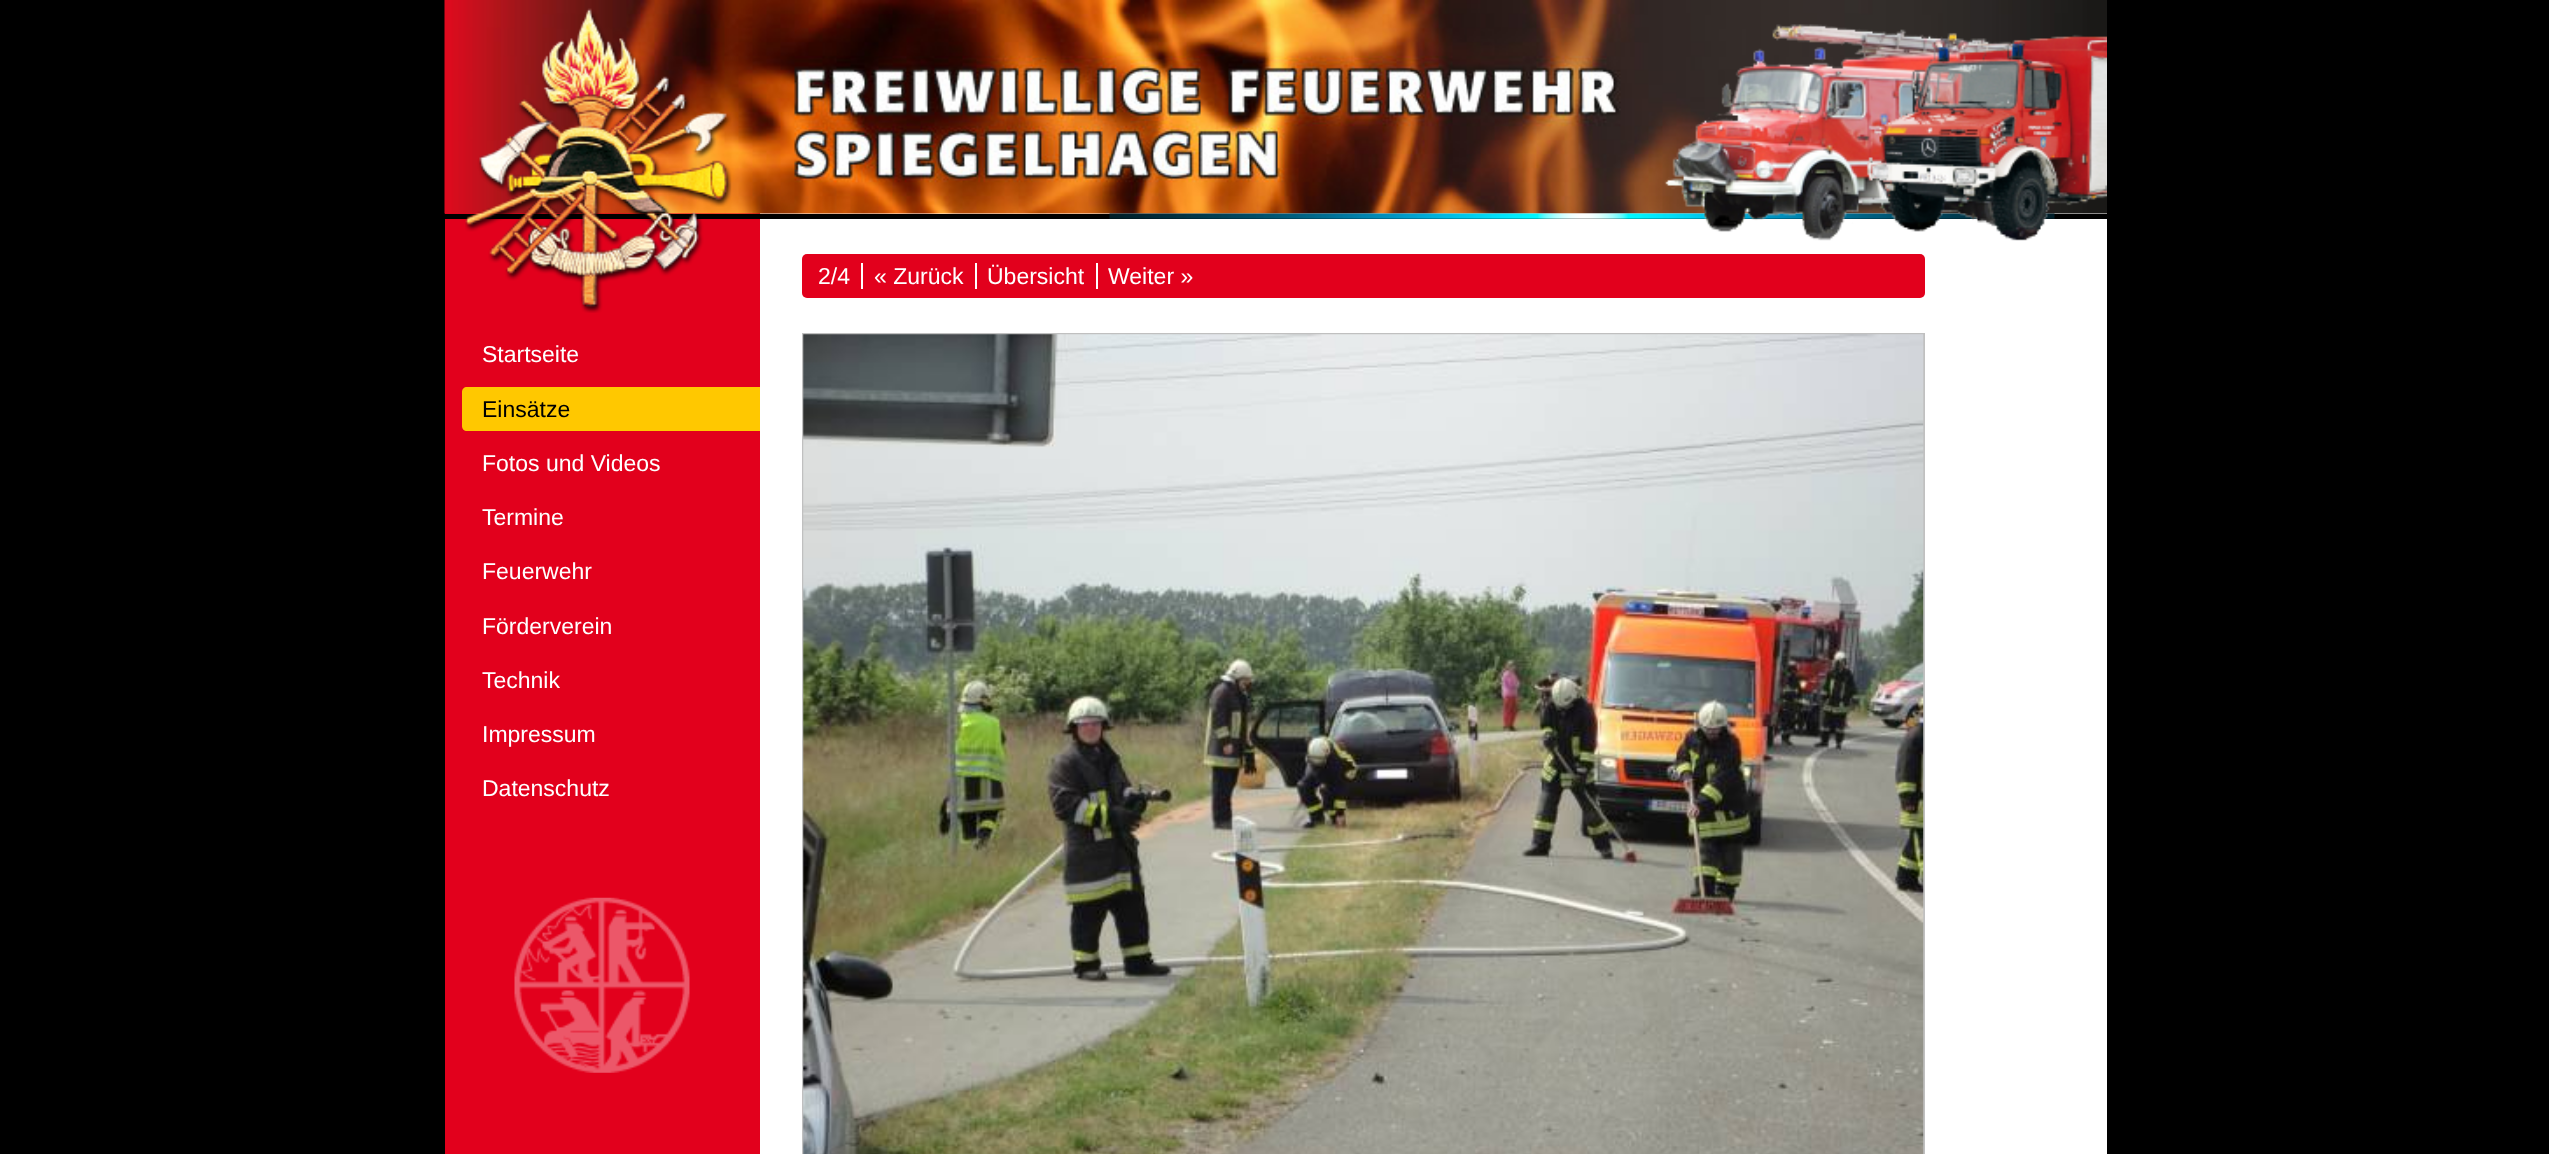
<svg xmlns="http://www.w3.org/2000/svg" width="2549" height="1154">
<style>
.a{font:23px Liberation Sans;fill:#fff}
.b{font:23px Liberation Sans;fill:#000}
</style>
<rect width="100%" height="100%" fill="#000"/>
<path fill="#fff" d="M760 213h1347v941H760z"/>
<path fill="#e2001c" d="M445 213h315v941H445z"/>
<image href="1.png" x="444" y="0" width="1663" height="214"/>
<path fill="#000" d="M445 214h1662v5H445z"/>
<image href="2.png" x="465" y="8" width="267" height="305"/>
<image href="4.png" x="1109" y="213" width="946" height="6"/>
<image href="3.png" x="1664" y="24" width="443" height="217"/>
<rect fill="#e2001c" x="802" y="254" width="1123" height="44" rx="5"/>
<path fill="#fff" d="M861 263h2v26H861z"/>
<path fill="#fff" d="M975 263h2v26H975z"/>
<path fill="#fff" d="M1096 263h2v26H1096z"/>
<path fill="none" stroke="#c0c0c0" stroke-width="2" d="M803 334h1121v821H803z"/>
<image href="5.png" x="803" y="334" width="1121" height="820"/>
<image href="6.png" x="514" y="897" width="176" height="176"/>
<path fill="#ffc800" d="M467 387h293v44h-293c-3 0-5-2-5-5v-34c0-3 2-5 5-5z"/>
<text class="a" x="818" y="284">2/4</text>
<text class="a" x="874" y="284">« Zurück</text>
<text class="a" x="987" y="284">Übersicht</text>
<text class="a" x="1108" y="284">Weiter »</text>
<text class="a" x="482" y="362">Startseite</text>
<text class="b" x="482" y="417">Einsätze</text>
<text class="a" x="482" y="471">Fotos und Videos</text>
<text class="a" x="482" y="525">Termine</text>
<text class="a" x="482" y="579">Feuerwehr</text>
<text class="a" x="482" y="634">Förderverein</text>
<text class="a" x="482" y="688">Technik</text>
<text class="a" x="482" y="742">Impressum</text>
<text class="a" x="482" y="796">Datenschutz</text>
</svg>
